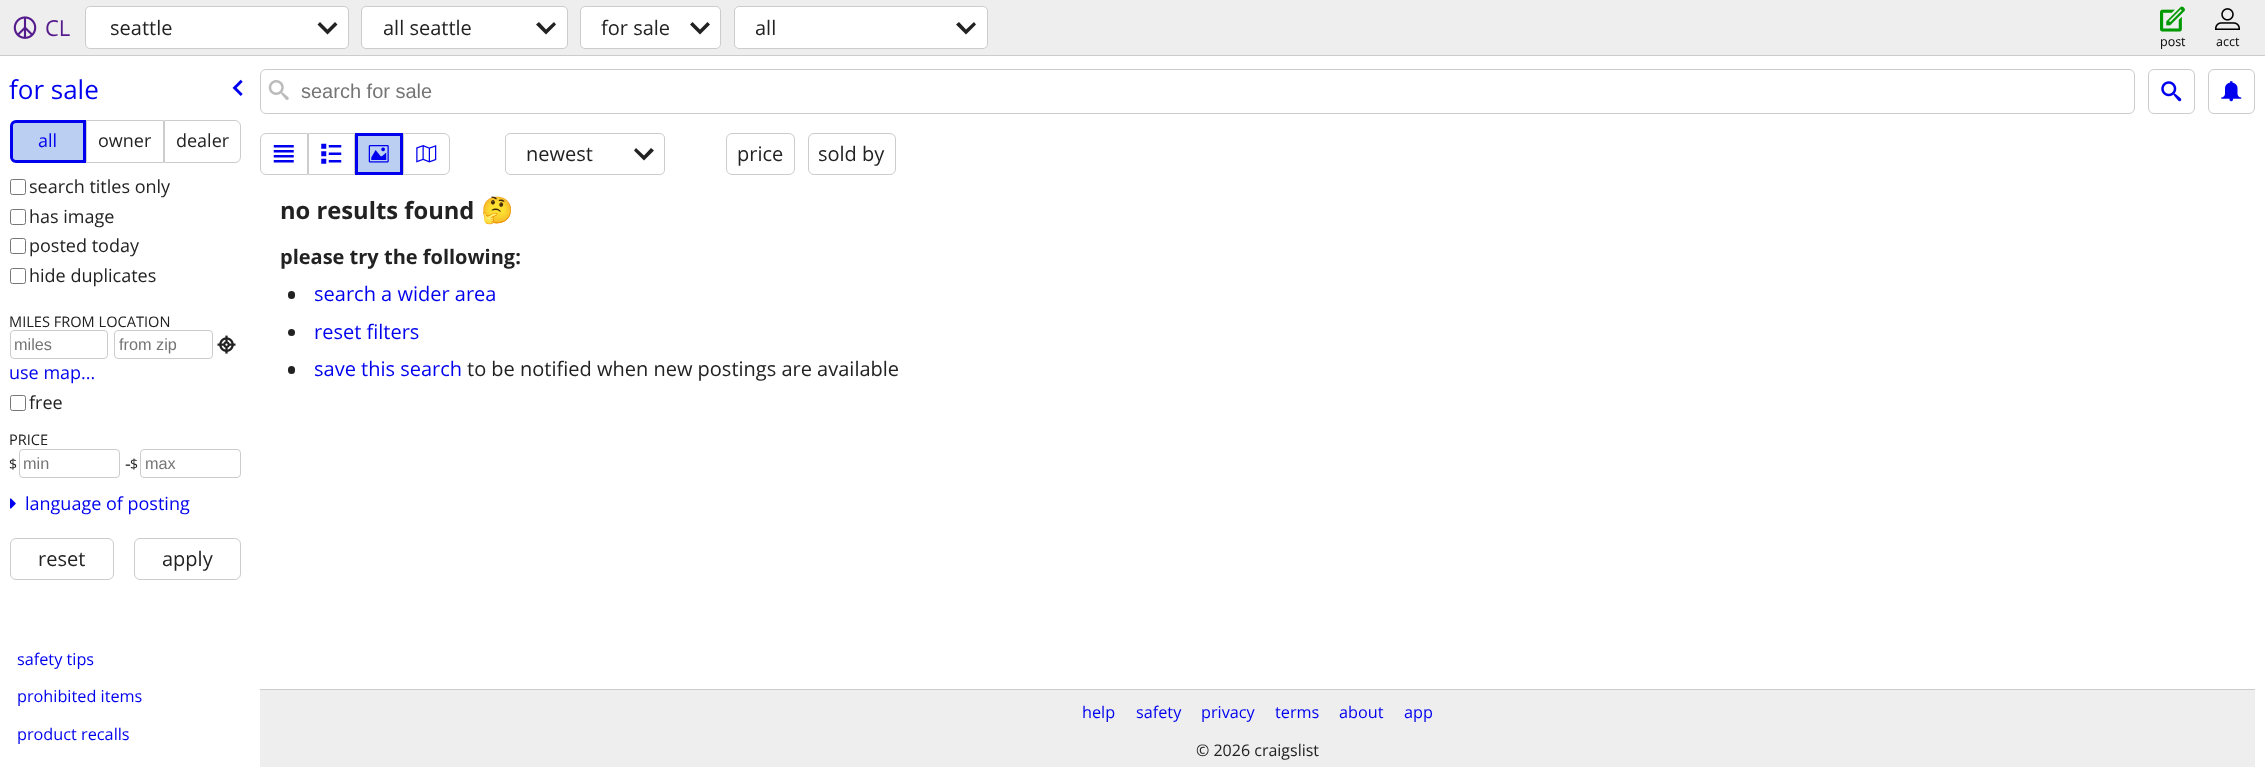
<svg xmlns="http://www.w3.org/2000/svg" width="2265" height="767">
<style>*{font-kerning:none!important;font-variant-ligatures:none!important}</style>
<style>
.a{font:22px Open Sans;fill:#551a8b}
.b{font:20px Open Sans;fill:#222}
.c{font:12.5px Open Sans;fill:#000}
.d{font:26px Open Sans;fill:#00e}
.e{font:18px Open Sans;fill:#00e}
.f{font:18px Open Sans;fill:#222}
.g{font:14.6px Open Sans;fill:#222}
.h{font:16.25px Liberation Sans;fill:#757575}
.i{font:14px Open Sans;fill:#222}
.j{font:16.25px Open Sans;fill:#00e}
.k{font:20px Liberation Sans;fill:#757575}
.l{font:bold 23.75px Open Sans;fill:#222}
.m{font:bold 26px Noto Color Emoji;fill:#222}
.n{font:bold 20px Open Sans;fill:#222}
.o{font:20px Open Sans;fill:#00e}
.p{font:16px Open Sans;fill:#222}
</style>
<rect width="100%" height="100%" fill="#fff"/>
<path fill="#eee" d="M0 0h2265v55H0z"/>
<path fill="#ccc" d="M0 55h2265v1H0z"/>
<image href="1.png" x="13" y="16" width="24" height="23"/>
<rect fill="#fff" stroke="#ccc" x="85.5" y="6.5" width="263" height="42" rx="4.5"/>
<path fill="#222" d="M337.5 24.5l-2.5-2.5l-7.5 7.5l-7.5-7.5l-2.5 2.5l10 10z"/>
<rect fill="#fff" stroke="#ccc" x="361.5" y="6.5" width="206" height="42" rx="4.5"/>
<path fill="#222" d="M556 24.5l-2-2.5l-8 7.5l-7-7.5l-3 2.5l10 10z"/>
<rect fill="#fff" stroke="#ccc" x="580.5" y="6.5" width="140" height="42" rx="4.5"/>
<path fill="#222" d="M710 24.5l-2.5-2.5l-7.5 7.5l-7.5-7.5l-2.5 2.5l10 10z"/>
<rect fill="#fff" stroke="#ccc" x="734.5" y="6.5" width="253" height="42" rx="4.5"/>
<path fill="#222" d="M976 24.5l-2-2.5l-8 7.5l-7-7.5l-3 2.5l10 10z"/>
<image href="2.png" x="2160" y="6" width="25" height="26"/>
<image href="3.png" x="2215" y="8" width="25" height="22"/>
<image href="4.png" x="232" y="79" width="11" height="17"/>
<path fill="#bacff2" stroke="#00e" stroke-width="3" d="M16 121.5h68.5v40h-68.5c-2.5 0-4.5-2-4.5-4.5v-31c0-2.5 2-4.5 4.5-4.5z"/>
<path fill="none" stroke="#ccc" d="M86.5 120.5h77v42H86.5z"/>
<path fill="none" stroke="#ccc" d="M164.5 120.5h70.5c3 0 5.5 2.5 5.5 5.5v31c0 3-2.5 5.5-5.5 5.5h-70.5z"/>
<rect fill="none" stroke="#767676" x="10.5" y="179.5" width="15" height="15" rx="2"/>
<rect fill="none" stroke="#767676" x="10.5" y="209.5" width="15" height="15" rx="2"/>
<rect fill="none" stroke="#767676" x="10.5" y="238.5" width="15" height="15" rx="2"/>
<rect fill="none" stroke="#767676" x="10.5" y="268.5" width="15" height="15" rx="2"/>
<rect fill="none" stroke="#ccc" x="10.5" y="330.5" width="97" height="28" rx="3.5"/>
<rect fill="none" stroke="#ccc" x="114.5" y="330.5" width="98" height="28" rx="3.5"/>
<image href="5.png" x="217" y="335" width="19" height="19"/>
<rect fill="none" stroke="#767676" x="10.5" y="395.5" width="15" height="15" rx="2"/>
<rect fill="none" stroke="#ccc" x="19.5" y="449.5" width="100" height="28" rx="3.5"/>
<rect fill="none" stroke="#ccc" x="140.5" y="449.5" width="100" height="28" rx="3.5"/>
<image href="6.png" x="10" y="498" width="6" height="11"/>
<rect fill="none" stroke="#ccc" x="10.5" y="538.5" width="103" height="41" rx="5.5"/>
<rect fill="none" stroke="#ccc" x="134.5" y="538.5" width="106" height="41" rx="5.5"/>
<rect fill="none" stroke="#ccc" x="260.5" y="69.5" width="1874" height="44" rx="5.5"/>
<image href="7.png" x="268" y="80" width="21" height="20"/>
<rect fill="none" stroke="#ccc" x="2148.5" y="69.5" width="46" height="44" rx="5.5"/>
<image href="8.png" x="2161" y="81" width="21" height="21"/>
<rect fill="none" stroke="#ccc" x="2208.5" y="69.5" width="46" height="44" rx="5.5"/>
<image href="9.png" x="2221" y="81" width="21" height="21"/>
<path fill="none" stroke="#ccc" d="M266 133.5h41.5v41h-41.5c-3 0-5.5-2.5-5.5-5.5v-30c0-3 2.5-5.5 5.5-5.5z"/>
<image href="10.png" x="273" y="145" width="21" height="18"/>
<path fill="none" stroke="#ccc" d="M308.5 133.5h46v41H308.5z"/>
<image href="11.png" x="321" y="143" width="21" height="21"/>
<path fill="#bacff2" stroke="#00e" stroke-width="3" d="M356.5 134.5h45v39H356.5z"/>
<image href="12.png" x="368" y="145" width="21" height="18"/>
<path fill="none" stroke="#ccc" d="M403.5 133.5h40.5c3 0 5.5 2.5 5.5 5.5v30c0 3-2.5 5.5-5.5 5.5h-40.5z"/>
<image href="13.png" x="416" y="145" width="21" height="18"/>
<rect fill="none" stroke="#ccc" x="505.5" y="133.5" width="159" height="41" rx="4.5"/>
<path fill="#222" d="M654 150.5l-3-2.5l-7 7.5l-8-7.5l-2 2.5l10 10z"/>
<rect fill="none" stroke="#ccc" x="726.5" y="133.5" width="68" height="41" rx="5.5"/>
<rect fill="none" stroke="#ccc" x="808.5" y="133.5" width="87" height="41" rx="5.5"/>
<rect fill="#222" x="288" y="291" width="7" height="8" rx="3.5"/>
<circle fill="#222" cx="291.5" cy="332.5" r="3.5"/>
<rect fill="#222" x="288" y="366" width="7" height="8" rx="3.5"/>
<path fill="#eee" d="M260 690h1995v77H260z"/>
<path fill="#ccc" d="M260 689h1995v1H260z"/>
<text class="a" x="45" y="36">CL</text>
<text class="b" x="110" y="35">seattle</text>
<text class="b" x="383" y="35">all seattle</text>
<text class="b" x="601" y="35">for sale</text>
<text class="b" x="755" y="35">all</text>
<text class="c" x="2160" y="46">post</text>
<text class="c" x="2216" y="46">acct</text>
<text class="d" x="9" y="99">for sale</text>
<text class="e" x="38" y="147">all</text>
<text class="f" x="98" y="147">owner</text>
<text class="f" x="176" y="147">dealer</text>
<text class="f" x="29" y="193">search titles only</text>
<text class="f" x="29" y="223">has image</text>
<text class="f" x="29" y="252">posted today</text>
<text class="f" x="29" y="282">hide duplicates</text>
<text class="g" x="9" y="327">MILES FROM LOCATION</text>
<text class="h" x="14" y="350">miles</text>
<text class="h" x="119" y="350">from zip</text>
<text class="e" x="9" y="379">use map...</text>
<text class="f" x="29" y="409">free</text>
<text class="g" x="9" y="445">PRICE</text>
<text class="i" x="9" y="469">$</text>
<text class="h" x="23" y="469">min</text>
<text class="f" x="125" y="470">-</text>
<text class="i" x="130" y="469">$</text>
<text class="h" x="145" y="469">max</text>
<text class="e" x="25" y="510">language of posting</text>
<text class="b" x="38" y="566">reset</text>
<text class="b" x="162" y="566">apply</text>
<text class="j" x="17" y="665">safety tips</text>
<text class="j" x="17" y="702">prohibited items</text>
<text class="j" x="17" y="740">product recalls</text>
<text class="k" x="301" y="98">search for sale</text>
<text class="b" x="526" y="161">newest</text>
<text class="b" x="737" y="161">price</text>
<text class="b" x="818" y="161">sold by</text>
<text class="l" x="280" y="219">no results found</text>
<text class="m" x="481" y="219">🤔</text>
<text class="n" x="280" y="264">please try the following:</text>
<text class="o" x="314" y="301">search a wider area</text>
<text class="o" x="314" y="339">reset filters</text>
<text class="o" x="314" y="376">save this search</text>
<text class="b" x="467" y="376">to be notified when new postings are available</text>
<text class="j" x="1082" y="718">help</text>
<text class="j" x="1136" y="718">safety</text>
<text class="j" x="1201" y="718">privacy</text>
<text class="j" x="1275" y="718">terms</text>
<text class="j" x="1339" y="718">about</text>
<text class="j" x="1404" y="718">app</text>
<text class="p" x="1196" y="756">© 2026 craigslist</text>
</svg>
